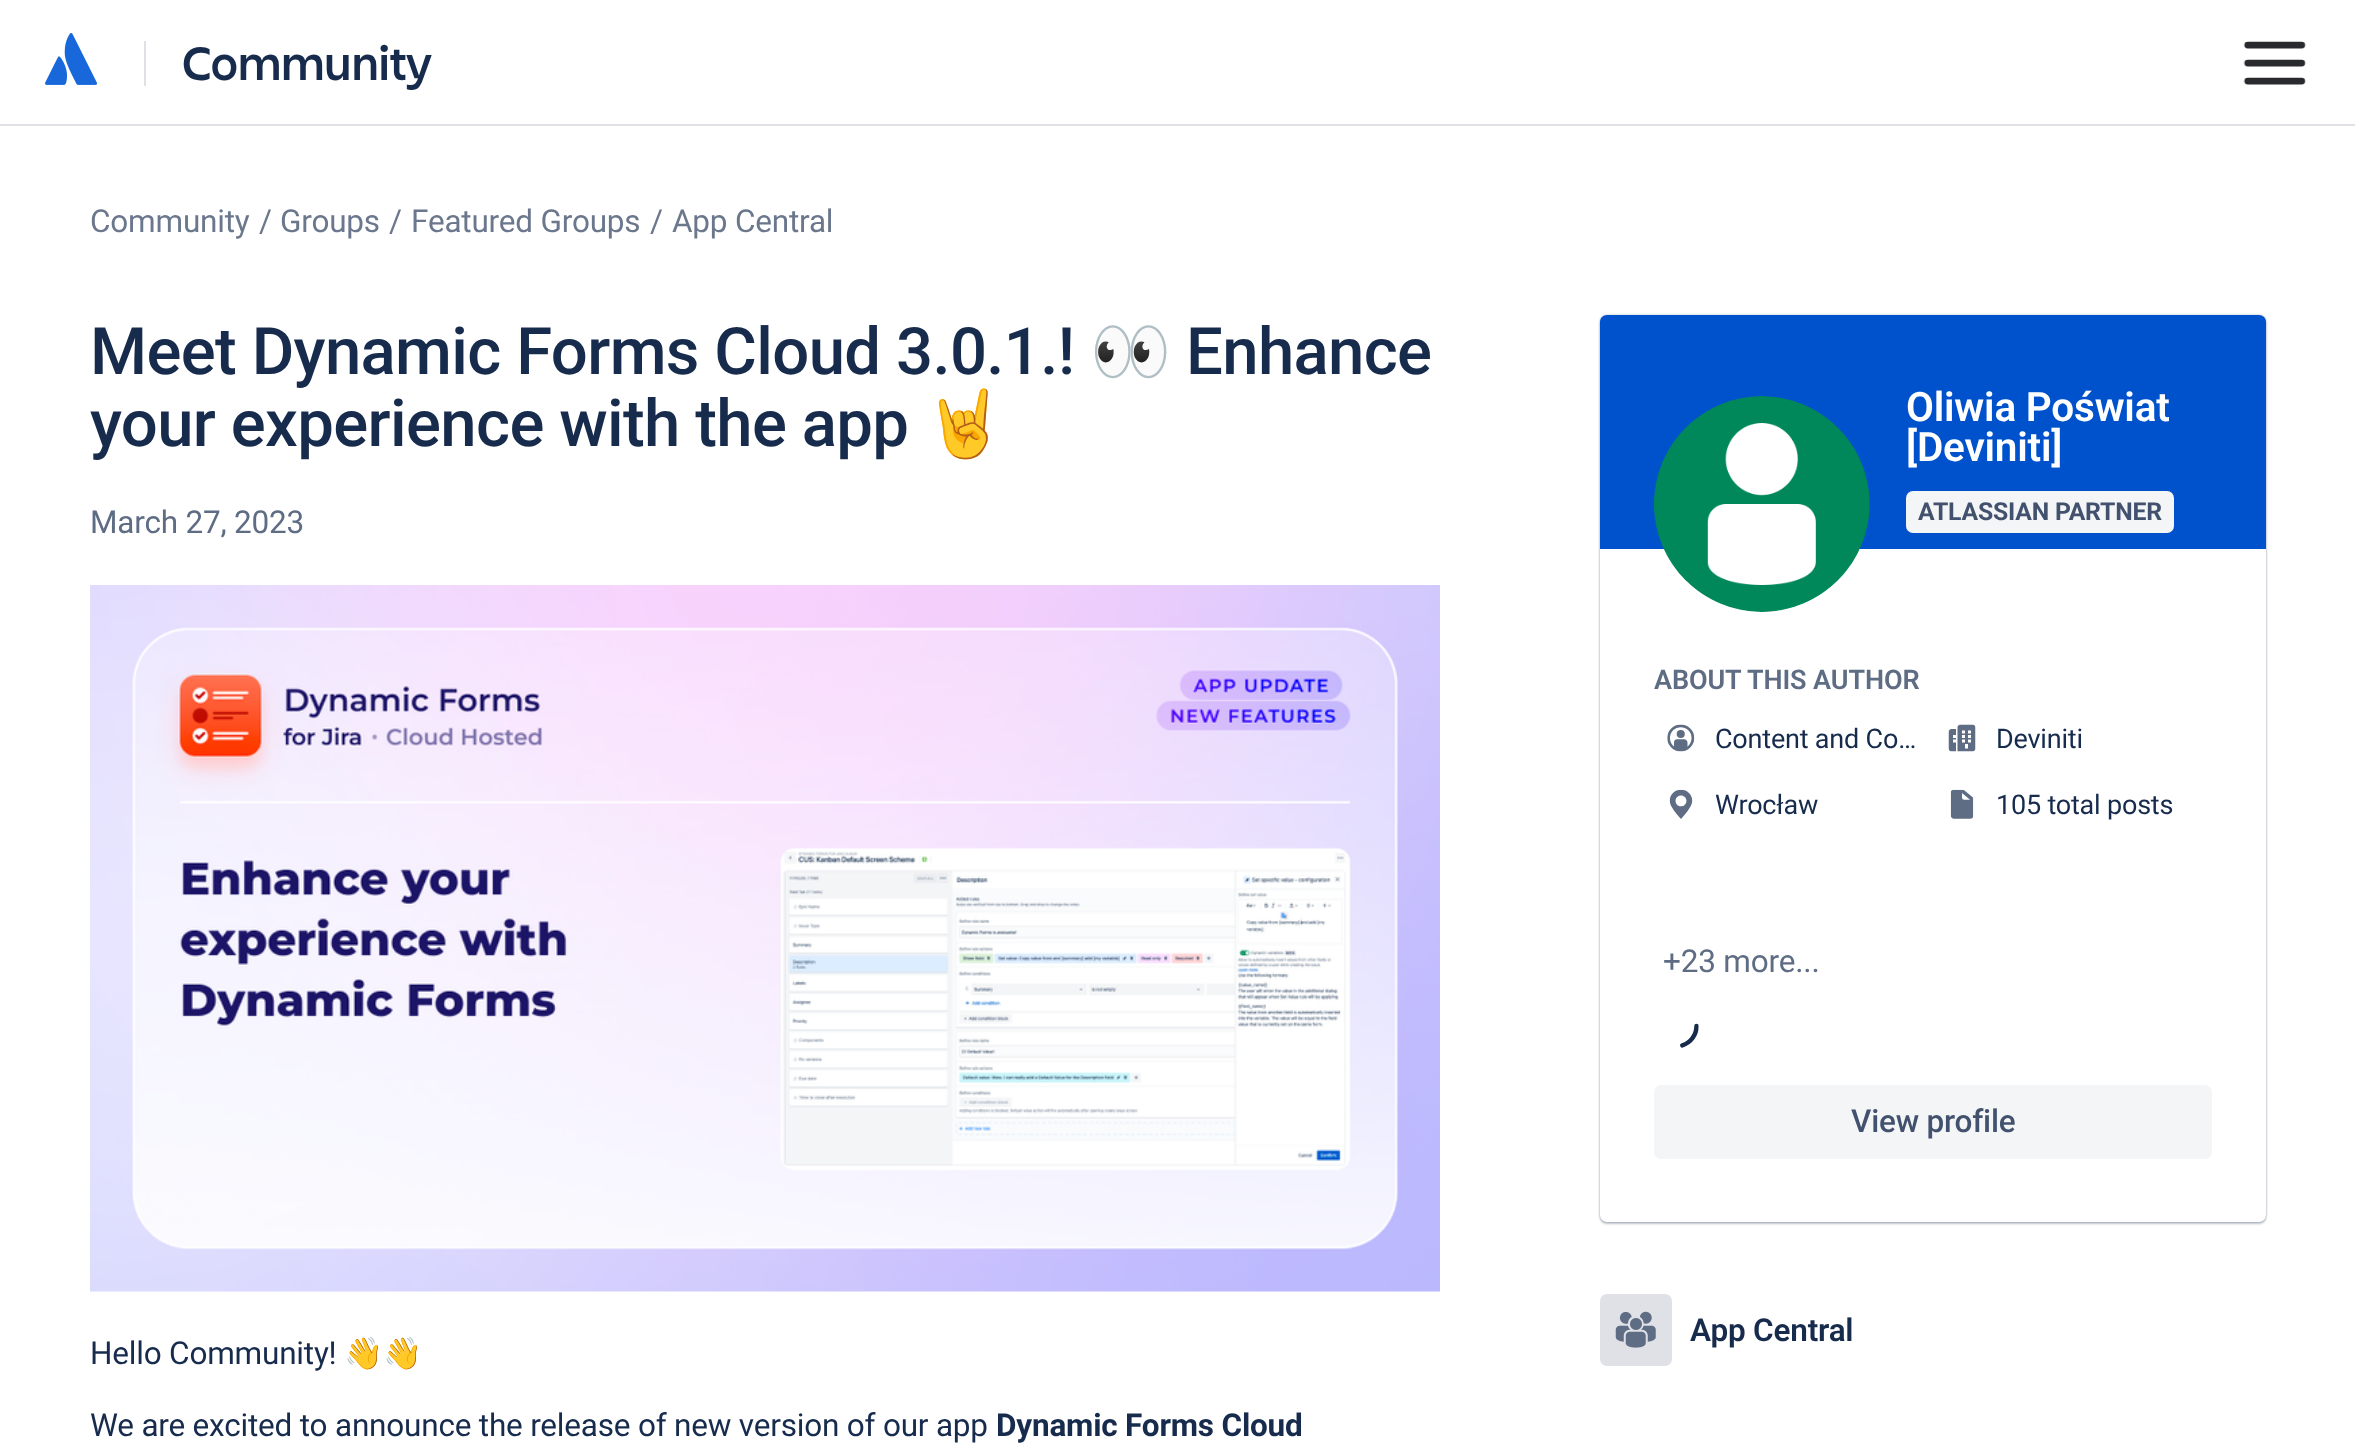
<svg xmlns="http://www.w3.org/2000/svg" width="2355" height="1450">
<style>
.a{font:600 49.5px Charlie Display;letter-spacing:-0.2px;fill:#172b4d}
.b{font:31.5px Roboto;letter-spacing:-0.2px;fill:#6b778c}
.c{font:500 65.25px Roboto;letter-spacing:-0.65px;fill:#172b4d}
.d{font:65.25px Noto Color Emoji;letter-spacing:-0.65px;fill:#172b4d}
.e{font:31.5px Roboto;letter-spacing:-0.2px;fill:#5e6c84}
.f{font:31.5px Roboto;letter-spacing:-0.2px;fill:#172b4d}
.g{font:31.5px Noto Color Emoji;letter-spacing:-0.2px;fill:#172b4d}
.h{font:bold 31.5px Roboto;letter-spacing:-0.2px;fill:#172b4d}
.i{font:600 40.5px Roboto;letter-spacing:-0.2px;fill:#fff}
.j{font:bold 24.75px Roboto;letter-spacing:-0.2px;fill:#42526e}
.k{font:600 27px Roboto;letter-spacing:-0.1px;fill:#5e6c84}
.l{font:27px Roboto;letter-spacing:-0.2px;fill:#172b4d}
.m{font:500 31.5px Roboto;letter-spacing:-0.2px;fill:#42526e}
.n{font:600 31.5px Roboto;letter-spacing:-0.2px;fill:#172b4d}
</style>
<rect width="100%" height="100%" fill="#fff"/>
<path fill="#dfe1e6" d="M0 124h2355v2H0z"/>
<image href="1.png" x="45" y="33" width="52" height="52"/>
<path fill="#dfe1e6" d="M144 41h2v45H144z"/>
<image href="2.png" x="2243" y="41" width="63" height="44"/>
<image href="3.png" x="90" y="585" width="1350" height="707"/>
<rect fill="#091e424f" filter="blur(1px)" x="1600" y="315" width="666" height="907" rx="7"/>
<rect fill="#091e4240" filter="blur(1px)" x="1600" y="317" width="666" height="907" rx="7"/>
<rect fill="#fff" x="1600" y="315" width="666" height="907" rx="7"/>
<path fill="#0052cc" d="M1607 315h652c4 0 7 3 7 7v227h-666v-227c0-4 3-7 7-7z"/>
<image href="4.png" x="1653" y="396" width="217" height="216"/>
<rect fill="#f4f5f7" x="1906" y="491" width="268" height="42" rx="7"/>
<image href="5.png" x="1667" y="724" width="28" height="28"/>
<image href="6.png" x="1948" y="724" width="28" height="28"/>
<image href="7.png" x="1669" y="789" width="24" height="30"/>
<image href="8.png" x="1950" y="789" width="24" height="30"/>
<image href="9.png" x="1680" y="1023" width="19" height="25"/>
<rect fill="#f4f5f7" x="1654" y="1085" width="558" height="74" rx="7"/>
<rect fill="#dfe1e6" x="1600" y="1294" width="72" height="72" rx="7"/>
<image href="10.png" x="1615" y="1311" width="41" height="37"/>
<text class="a" x="182" y="80">Community</text>
<text class="b" x="90" y="232">Community</text>
<text class="b" x="259" y="232">/</text>
<text class="b" x="280" y="232">Groups</text>
<text class="b" x="389" y="232">/</text>
<text class="b" x="411" y="232">Featured Groups</text>
<text class="b" x="650" y="232">/</text>
<text class="b" x="672" y="232">App Central</text>
<text class="c" x="90" y="374">Meet Dynamic Forms Cloud 3.0.1.!</text>
<text class="d" x="1090" y="374">👀</text>
<text class="c" x="1186" y="374">Enhance</text>
<text class="c" x="90" y="446">your experience with the app</text>
<text class="d" x="924" y="446">🤘</text>
<text class="e" x="90" y="533">March 27, 2023</text>
<text class="f" x="90" y="1364">Hello Community!</text>
<text class="g" x="344" y="1364">👋👋</text>
<text class="f" x="90" y="1436">We are excited to announce the release of new version of our app</text>
<text class="h" x="996" y="1436">Dynamic Forms Cloud</text>
<text class="i" x="1906" y="421">Oliwia Poświat</text>
<text class="i" x="1906" y="461">[Deviniti]</text>
<text class="j" x="1918" y="520">ATLASSIAN PARTNER</text>
<text class="k" x="1654" y="689">ABOUT THIS AUTHOR</text>
<text class="l" x="1715" y="748">Content and Co…</text>
<text class="l" x="1996" y="748">Deviniti</text>
<text class="l" x="1715" y="814">Wrocław</text>
<text class="l" x="1996" y="814">105 total posts</text>
<text class="e" x="1663" y="972">+23 more...</text>
<text class="m" x="1851" y="1132">View profile</text>
<text class="n" x="1690" y="1341">App Central</text>
</svg>
